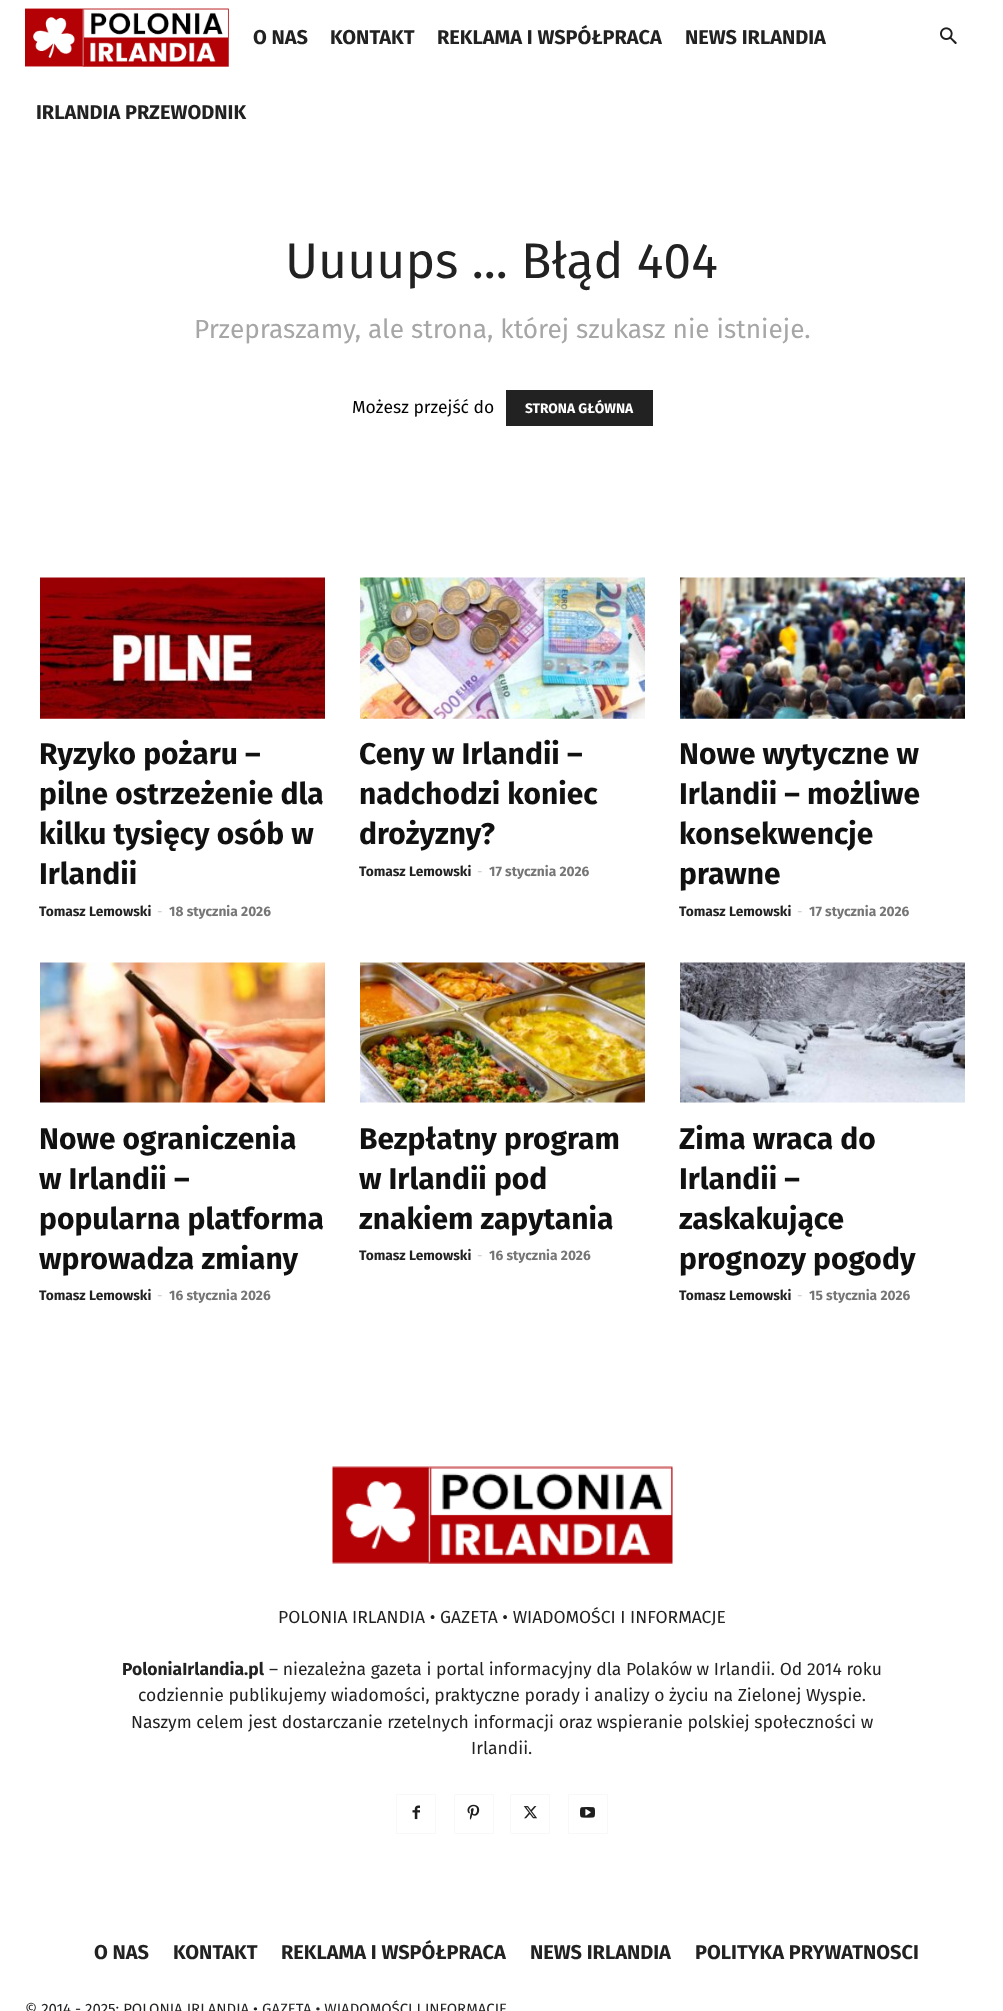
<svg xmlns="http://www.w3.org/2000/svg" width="1003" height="2011">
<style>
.a{font:bold 20px Fira Sans;fill:#222}
.b{font:50px Fira Sans;fill:#222}
.c{font:26.25px Fira Sans;fill:#a6a6a6}
.d{font:17.5px Fira Sans;fill:#000}
.e{font:bold 13.75px Fira Sans;fill:#fff}
.f{font:bold 30px Fira Sans;fill:#111}
.g{font:bold 13.75px Fira Sans;fill:#222}
.h{font:13.75px Fira Sans;fill:#ccc}
.i{font:bold 13.75px Fira Sans;fill:#767676}
.j{font:17.5px Fira Sans;fill:#222}
.k{font:bold 17.5px Fira Sans;fill:#222}
.l{font:15px Fira Sans;fill:#222}
</style>
<rect width="100%" height="100%" fill="#fff"/>
<image href="1.png" x="25" y="8" width="204" height="59"/>
<image href="2.png" x="940" y="27" width="17" height="17"/>
<path fill="#222" d="M506 390h147v36H506z"/>
<image href="3.png" x="40" y="577" width="285" height="142"/>
<image href="4.png" x="360" y="577" width="285" height="142"/>
<image href="5.png" x="680" y="577" width="285" height="142"/>
<image href="6.png" x="40" y="962" width="285" height="141"/>
<image href="7.png" x="360" y="962" width="285" height="141"/>
<image href="8.png" x="680" y="962" width="285" height="141"/>
<image href="9.png" x="332" y="1466" width="341" height="98"/>
<image href="10.png" x="412" y="1805" width="8" height="15"/>
<path fill="none" stroke="#f8f8f8" d="M396.5 1794.5h39v39H396.5z"/>
<image href="11.png" x="467" y="1804" width="13" height="16"/>
<path fill="none" stroke="#f8f8f8" d="M454.5 1794.5h39v39H454.5z"/>
<image href="12.png" x="523" y="1806" width="15" height="13"/>
<path fill="none" stroke="#f8f8f8" d="M510.5 1794.5h39v39H510.5z"/>
<image href="13.png" x="580" y="1807" width="15" height="11"/>
<path fill="none" stroke="#f8f8f8" d="M568.5 1794.5h39v39H568.5z"/>
<text class="a" x="253" y="44">O NAS</text>
<text class="a" x="330" y="44">KONTAKT</text>
<text class="a" x="437" y="44">REKLAMA I WSPÓŁPRACA</text>
<text class="a" x="685" y="44">NEWS IRLANDIA</text>
<text class="a" x="36" y="119">IRLANDIA PRZEWODNIK</text>
<text class="b" x="285" y="278">Uuuups ... Błąd 404</text>
<text class="c" x="194" y="338">Przepraszamy, ale strona, której szukasz nie istnieje.</text>
<text class="d" x="352" y="413">Możesz przejść do</text>
<text class="e" x="525" y="413">STRONA GŁÓWNA</text>
<text class="f" x="39" y="764">Ryzyko pożaru –</text>
<text class="f" x="39" y="804">pilne ostrzeżenie dla</text>
<text class="f" x="39" y="844">kilku tysięcy osób w</text>
<text class="f" x="39" y="884">Irlandii</text>
<text class="g" x="39" y="916">Tomasz Lemowski</text>
<text class="h" x="157" y="916">-</text>
<text class="i" x="169" y="916">18 stycznia 2026</text>
<text class="f" x="359" y="764">Ceny w Irlandii –</text>
<text class="f" x="359" y="804">nadchodzi koniec</text>
<text class="f" x="359" y="844">drożyzny?</text>
<text class="g" x="359" y="876">Tomasz Lemowski</text>
<text class="h" x="477" y="876">-</text>
<text class="i" x="489" y="876">17 stycznia 2026</text>
<text class="f" x="679" y="764">Nowe wytyczne w</text>
<text class="f" x="679" y="804">Irlandii – możliwe</text>
<text class="f" x="679" y="844">konsekwencje</text>
<text class="f" x="679" y="884">prawne</text>
<text class="g" x="679" y="916">Tomasz Lemowski</text>
<text class="h" x="797" y="916">-</text>
<text class="i" x="809" y="916">17 stycznia 2026</text>
<text class="f" x="39" y="1149">Nowe ograniczenia</text>
<text class="f" x="39" y="1189">w Irlandii –</text>
<text class="f" x="39" y="1229">popularna platforma</text>
<text class="f" x="39" y="1269">wprowadza zmiany</text>
<text class="g" x="39" y="1300">Tomasz Lemowski</text>
<text class="h" x="157" y="1300">-</text>
<text class="i" x="169" y="1300">16 stycznia 2026</text>
<text class="f" x="359" y="1149">Bezpłatny program</text>
<text class="f" x="359" y="1189">w Irlandii pod</text>
<text class="f" x="359" y="1229">znakiem zapytania</text>
<text class="g" x="359" y="1260">Tomasz Lemowski</text>
<text class="h" x="477" y="1260">-</text>
<text class="i" x="489" y="1260">16 stycznia 2026</text>
<text class="f" x="679" y="1149">Zima wraca do</text>
<text class="f" x="679" y="1189">Irlandii –</text>
<text class="f" x="679" y="1229">zaskakujące</text>
<text class="f" x="679" y="1269">prognozy pogody</text>
<text class="g" x="679" y="1300">Tomasz Lemowski</text>
<text class="h" x="797" y="1300">-</text>
<text class="i" x="809" y="1300">15 stycznia 2026</text>
<text class="j" x="278" y="1623">POLONIA IRLANDIA • GAZETA • WIADOMOŚCI I INFORMACJE</text>
<text class="k" x="122" y="1675">PoloniaIrlandia.pl</text>
<text class="j" x="269" y="1675">– niezależna gazeta i portal informacyjny dla Polaków w Irlandii. Od 2014 roku</text>
<text class="j" x="138" y="1701">codziennie publikujemy wiadomości, praktyczne porady i analizy o życiu na Zielonej Wyspie.</text>
<text class="j" x="131" y="1728">Naszym celem jest dostarczanie rzetelnych informacji oraz wspieranie polskiej społeczności w</text>
<text class="j" x="471" y="1754">Irlandii.</text>
<text class="a" x="94" y="1959">O NAS</text>
<text class="a" x="173" y="1959">KONTAKT</text>
<text class="a" x="281" y="1959">REKLAMA I WSPÓŁPRACA</text>
<text class="a" x="530" y="1959">NEWS IRLANDIA</text>
<text class="a" x="695" y="1959">POLITYKA PRYWATNOSCI</text>
<text class="l" x="25" y="2014">© 2014 - 2025: POLONIA IRLANDIA • GAZETA • WIADOMOŚCI I INFORMACJE</text>
</svg>
